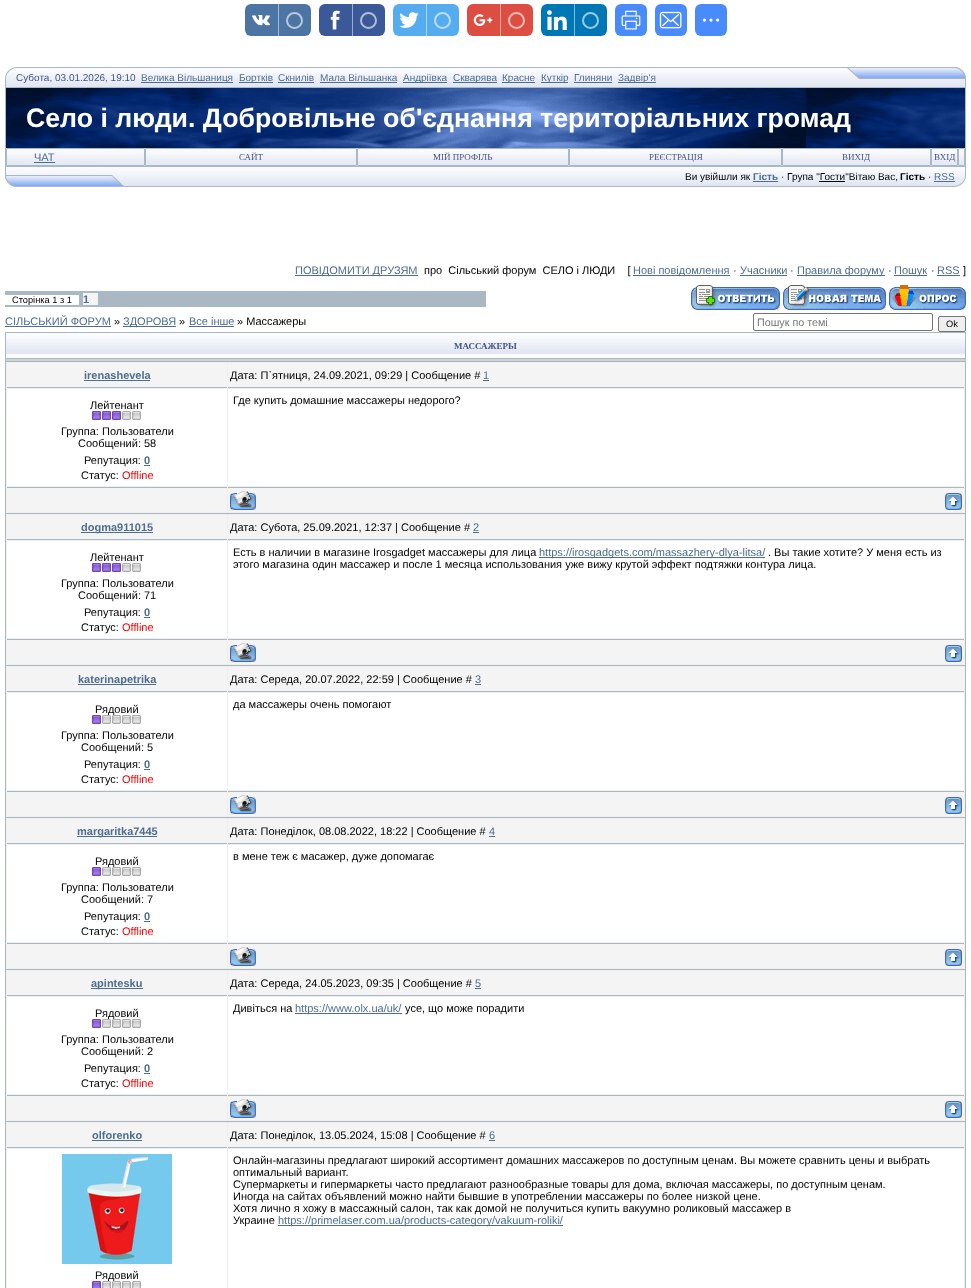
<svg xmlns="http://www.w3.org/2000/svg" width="971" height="1288">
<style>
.a{font:10px Liberation Sans;fill:#458}
.b{font:10px Liberation Sans;fill:#4d6d91}
.c{font:bold 26.7px Liberation Sans;fill:#fff}
.d{font:11px Liberation Sans;fill:#4d6d91}
.e{font:9px Liberation Serif;fill:#458}
.f{font:10px Liberation Sans;fill:#000}
.g{font:bold 10px Liberation Sans;fill:#4d6d91}
.h{font:bold 10px Liberation Sans;fill:#000}
.i{font:11px Liberation Sans;fill:#000}
.j{font:9.25px Liberation Sans;fill:#000}
.k{font:bold 11px Liberation Sans;fill:#4d6d91}
.l{font:10.75px Liberation Sans;fill:#757575}
.m{font:bold 9px Liberation Serif;fill:#458}
.n{font:11px Liberation Sans;fill:#f00}
</style>
<rect width="100%" height="100%" fill="#fff"/>
<rect fill="#4d75a3" x="245" y="4" width="66" height="32" rx="6"/>
<image href="1.png" x="252" y="15" width="18" height="11"/>
<path fill="#a6bad1" d="M278 4h1v32H278z"/>
<circle fill="none" stroke="#b8c8da" stroke-width="2" cx="294.5" cy="20.5" r="7.5"/>
<rect fill="#3b5998" x="319" y="4" width="66" height="32" rx="6"/>
<image href="2.png" x="330" y="10" width="10" height="20"/>
<path fill="#9daccc" d="M352 4h1v32H352z"/>
<circle fill="none" stroke="#b1bdd6" stroke-width="2" cx="368.5" cy="20.5" r="7.5"/>
<rect fill="#55acee" x="393" y="4" width="66" height="32" rx="6"/>
<image href="3.png" x="399" y="12" width="20" height="16"/>
<path fill="#aad6f7" d="M426 4h1v32H426z"/>
<circle fill="none" stroke="#bbdef8" stroke-width="2" cx="442.5" cy="20.5" r="7.5"/>
<rect fill="#dc4e41" x="467" y="4" width="66" height="32" rx="6"/>
<image href="4.png" x="473" y="14" width="20" height="12"/>
<path fill="#eea7a0" d="M500 4h1v32H500z"/>
<circle fill="none" stroke="#f1b8b3" stroke-width="2" cx="516.5" cy="20.5" r="7.5"/>
<rect fill="#0077b5" x="541" y="4" width="66" height="32" rx="6"/>
<image href="5.png" x="547" y="10" width="20" height="20"/>
<path fill="#80bbda" d="M574 4h1v32H574z"/>
<circle fill="none" stroke="#99c9e1" stroke-width="2" cx="590.5" cy="20.5" r="7.5"/>
<rect fill="#498bfa" x="615" y="4" width="32" height="32" rx="6"/>
<image href="6.png" x="621" y="10" width="20" height="20"/>
<rect fill="#498bfa" x="655" y="4" width="32" height="32" rx="6"/>
<image href="7.png" x="659" y="11" width="23" height="18"/>
<rect fill="#498bfa" x="695" y="4" width="32" height="32" rx="6"/>
<image href="8.png" x="702" y="18" width="18" height="4"/>
<image href="9.png" x="5" y="67" width="11" height="21"/>
<image href="10.png" x="16" y="67" width="831" height="21"/>
<path fill="#4d6d91" d="M141 82h92v1H141z"/>
<path fill="#4d6d91" d="M239 82h34v1H239z"/>
<path fill="#4d6d91" d="M278 82h36v1H278z"/>
<path fill="#4d6d91" d="M320 82h77v1H320z"/>
<path fill="#4d6d91" d="M403 82h44v1H403z"/>
<path fill="#4d6d91" d="M453 82h44v1H453z"/>
<path fill="#4d6d91" d="M502 82h33v1H502z"/>
<path fill="#4d6d91" d="M541 82h27v1H541z"/>
<path fill="#4d6d91" d="M574 82h38v1H574z"/>
<path fill="#4d6d91" d="M618 82h38v1H618z"/>
<image href="11.png" x="847" y="67" width="119" height="21"/>
<path fill="#a9b8c2" d="M965 88h1v78H965z"/>
<path fill="#a9b8c2" d="M5 88h1v78H5z"/>
<image href="12.png" x="6" y="88" width="959" height="60"/>
<image href="13.png" x="7" y="149" width="137" height="16"/>
<path fill="none" stroke="#a9b8c2" d="M6.5 148.5h138v17H6.5z"/>
<path fill="#4d6d91" d="M34 162h21v1H34z"/>
<image href="14.png" x="146" y="149" width="210" height="16"/>
<path fill="none" stroke="#a9b8c2" d="M145.5 148.5h211v17H145.5z"/>
<image href="14.png" x="358" y="149" width="210" height="16"/>
<path fill="none" stroke="#a9b8c2" d="M357.5 148.5h211v17H357.5z"/>
<image href="15.png" x="570" y="149" width="211" height="16"/>
<path fill="none" stroke="#a9b8c2" d="M569.5 148.5h212v17H569.5z"/>
<image href="16.png" x="783" y="149" width="147" height="16"/>
<path fill="none" stroke="#a9b8c2" d="M782.5 148.5h148v17H782.5z"/>
<image href="17.png" x="932" y="149" width="25" height="16"/>
<path fill="none" stroke="#a9b8c2" d="M931.5 148.5h26v17H931.5z"/>
<image href="18.png" x="959" y="149" width="5" height="16"/>
<path fill="none" stroke="#a9b8c2" d="M958.5 148.5h6v17H958.5z"/>
<image href="19.png" x="5" y="166" width="119" height="21"/>
<image href="10.png" x="124" y="166" width="831" height="21"/>
<path fill="#4d6d91" d="M753 181h25v1H753z"/>
<path fill="#4d6d91" d="M934 181h21v1H934z"/>
<path fill="#000" d="M819 181h26v1H819z"/>
<image href="20.png" x="955" y="166" width="11" height="21"/>
<path fill="#4d6d91" d="M295 275h123v1H295z"/>
<path fill="#4d6d91" d="M633 275h97v1H633z"/>
<path fill="#4d6d91" d="M740 275h47v1H740z"/>
<path fill="#4d6d91" d="M797 275h88v1H797z"/>
<path fill="#4d6d91" d="M894 275h33v1H894z"/>
<path fill="#4d6d91" d="M937 275h23v1H937z"/>
<path fill="#a9b8c2" d="M5 291h481v16H5z"/>
<path fill="#fff" d="M5 295h74v10H5z"/>
<path fill="#f4f4f4" d="M83 293h15v12H83z"/>
<image href="21.png" x="691" y="285" width="89" height="25"/>
<image href="22.png" x="783" y="285" width="103" height="25"/>
<image href="23.png" x="889" y="285" width="77" height="25"/>
<path fill="#4d6d91" d="M5 326h106v1H5z"/>
<path fill="#4d6d91" d="M123 326h53v1H123z"/>
<path fill="#4d6d91" d="M189 326h45v1H189z"/>
<rect fill="none" stroke="#767676" x="753.5" y="313.5" width="179" height="17" rx="1.5"/>
<rect fill="#efefef" stroke="#767676" x="938.5" y="316.5" width="27" height="15" rx="1.5"/>
<path fill="#a9b8c2" d="M5 332h961v956H5z"/>
<image href="24.png" x="6" y="333" width="959" height="25"/>
<path fill="#d2d2d2" d="M6 359h959v2H6z"/>
<path fill="#efefef" d="M6 362h959v151H6z"/>
<path fill="#f4f4f4" d="M7 363h220v24H7z"/>
<path fill="#a9b8c2" d="M7 387h220v1H7z"/>
<path fill="#4d6d91" d="M84 380h66v1H84z"/>
<path fill="#f4f4f4" d="M228 363h736v24H228z"/>
<path fill="#a9b8c2" d="M228 387h736v1H228z"/>
<path fill="#4d6d91" d="M483 380h6v1H483z"/>
<path fill="#fff" d="M7 389h220v97H7z"/>
<image href="25.png" x="92" y="411" width="49" height="9"/>
<path fill="#4d6d91" d="M144 465h6v1H144z"/>
<path fill="#fff" d="M228 389h736v97H228z"/>
<path fill="#f4f4f4" d="M7 488h220v24H7z"/>
<path fill="#a9b8c2" d="M7 487h220v1H7z"/>
<path fill="#f4f4f4" d="M228 488h736v24H228z"/>
<path fill="#a9b8c2" d="M228 487h736v1H228z"/>
<image href="26.png" x="230" y="491" width="26" height="19"/>
<image href="27.png" x="945" y="493" width="17" height="17"/>
<path fill="#efefef" d="M6 514h959v151H6z"/>
<path fill="#f4f4f4" d="M7 515h220v24H7z"/>
<path fill="#a9b8c2" d="M7 539h220v1H7z"/>
<path fill="#4d6d91" d="M81 532h72v1H81z"/>
<path fill="#f4f4f4" d="M228 515h736v24H228z"/>
<path fill="#a9b8c2" d="M228 539h736v1H228z"/>
<path fill="#4d6d91" d="M473 532h6v1H473z"/>
<path fill="#fff" d="M7 541h220v97H7z"/>
<image href="25.png" x="92" y="563" width="49" height="9"/>
<path fill="#4d6d91" d="M144 617h6v1H144z"/>
<path fill="#fff" d="M228 541h736v97H228z"/>
<path fill="#4d6d91" d="M539 557h226v1H539z"/>
<path fill="#f4f4f4" d="M7 640h220v24H7z"/>
<path fill="#a9b8c2" d="M7 639h220v1H7z"/>
<path fill="#f4f4f4" d="M228 640h736v24H228z"/>
<path fill="#a9b8c2" d="M228 639h736v1H228z"/>
<image href="26.png" x="230" y="643" width="26" height="19"/>
<image href="27.png" x="945" y="645" width="17" height="17"/>
<path fill="#efefef" d="M6 666h959v151H6z"/>
<path fill="#f4f4f4" d="M7 667h220v24H7z"/>
<path fill="#a9b8c2" d="M7 691h220v1H7z"/>
<path fill="#4d6d91" d="M78 684h78v1H78z"/>
<path fill="#f4f4f4" d="M228 667h736v24H228z"/>
<path fill="#a9b8c2" d="M228 691h736v1H228z"/>
<path fill="#4d6d91" d="M475 684h6v1H475z"/>
<path fill="#fff" d="M7 693h220v97H7z"/>
<path fill="#4d6d91" d="M144 769h6v1H144z"/>
<path fill="#fff" d="M228 693h736v97H228z"/>
<path fill="#f4f4f4" d="M7 792h220v24H7z"/>
<path fill="#a9b8c2" d="M7 791h220v1H7z"/>
<path fill="#f4f4f4" d="M228 792h736v24H228z"/>
<path fill="#a9b8c2" d="M228 791h736v1H228z"/>
<image href="26.png" x="230" y="795" width="26" height="19"/>
<image href="27.png" x="945" y="797" width="17" height="17"/>
<path fill="#efefef" d="M6 818h959v151H6z"/>
<path fill="#f4f4f4" d="M7 819h220v24H7z"/>
<path fill="#a9b8c2" d="M7 843h220v1H7z"/>
<path fill="#4d6d91" d="M77 836h80v1H77z"/>
<path fill="#f4f4f4" d="M228 819h736v24H228z"/>
<path fill="#a9b8c2" d="M228 843h736v1H228z"/>
<path fill="#4d6d91" d="M489 836h6v1H489z"/>
<path fill="#fff" d="M7 845h220v97H7z"/>
<path fill="#4d6d91" d="M144 921h6v1H144z"/>
<path fill="#fff" d="M228 845h736v97H228z"/>
<path fill="#f4f4f4" d="M7 944h220v24H7z"/>
<path fill="#a9b8c2" d="M7 943h220v1H7z"/>
<path fill="#f4f4f4" d="M228 944h736v24H228z"/>
<path fill="#a9b8c2" d="M228 943h736v1H228z"/>
<image href="26.png" x="230" y="947" width="26" height="19"/>
<image href="27.png" x="945" y="949" width="17" height="17"/>
<path fill="#efefef" d="M6 970h959v151H6z"/>
<path fill="#f4f4f4" d="M7 971h220v24H7z"/>
<path fill="#a9b8c2" d="M7 995h220v1H7z"/>
<path fill="#4d6d91" d="M91 988h52v1H91z"/>
<path fill="#f4f4f4" d="M228 971h736v24H228z"/>
<path fill="#a9b8c2" d="M228 995h736v1H228z"/>
<path fill="#4d6d91" d="M475 988h6v1H475z"/>
<path fill="#fff" d="M7 997h220v97H7z"/>
<path fill="#4d6d91" d="M144 1073h6v1H144z"/>
<path fill="#fff" d="M228 997h736v97H228z"/>
<path fill="#4d6d91" d="M295 1013h107v1H295z"/>
<path fill="#f4f4f4" d="M7 1096h220v24H7z"/>
<path fill="#a9b8c2" d="M7 1095h220v1H7z"/>
<path fill="#f4f4f4" d="M228 1096h736v24H228z"/>
<path fill="#a9b8c2" d="M228 1095h736v1H228z"/>
<image href="26.png" x="230" y="1099" width="26" height="19"/>
<image href="27.png" x="945" y="1101" width="17" height="17"/>
<path fill="#efefef" d="M6 1122h959v166H6z"/>
<path fill="#f4f4f4" d="M7 1123h220v24H7z"/>
<path fill="#a9b8c2" d="M7 1147h220v1H7z"/>
<path fill="#4d6d91" d="M92 1140h50v1H92z"/>
<path fill="#f4f4f4" d="M228 1123h736v24H228z"/>
<path fill="#a9b8c2" d="M228 1147h736v1H228z"/>
<path fill="#4d6d91" d="M489 1140h6v1H489z"/>
<path fill="#fff" d="M228 1149h736v139H228z"/>
<path fill="#4d6d91" d="M278 1225h285v1H278z"/>
<path fill="#fff" d="M7 1149h220v139H7z"/>
<image href="29.png" x="62" y="1154" width="110" height="110"/>
<text class="a" x="16" y="81">Субота, 03.01.2026, 19:10</text>
<text class="b" x="141" y="81">Велика Вільшаниця</text>
<text class="b" x="239" y="81">Бортків</text>
<text class="b" x="278" y="81">Скнилів</text>
<text class="b" x="320" y="81">Мала Вільшанка</text>
<text class="b" x="403" y="81">Андріївка</text>
<text class="b" x="453" y="81">Скварява</text>
<text class="b" x="502" y="81">Красне</text>
<text class="b" x="541" y="81">Куткір</text>
<text class="b" x="574" y="81">Глиняни</text>
<text class="b" x="618" y="81">Задвір'я</text>
<text class="c" x="26" y="127">Село і люди. Добровільне об'єднання територіальних громад</text>
<text class="d" x="34" y="161">ЧАТ</text>
<text class="e" x="239" y="160">САЙТ</text>
<text class="e" x="433" y="160">МІЙ ПРОФІЛЬ</text>
<text class="e" x="649" y="160">РЕЄСТРАЦІЯ</text>
<text class="e" x="842" y="160">ВИХІД</text>
<text class="e" x="934" y="160">ВХІД</text>
<text class="f" x="685" y="180">Ви увійшли як</text>
<text class="g" x="753" y="180">Гість</text>
<text class="f" x="781" y="180">· Група "Гости"Вітаю Вас,</text>
<text class="h" x="900" y="180">Гість</text>
<text class="f" x="928" y="180">·</text>
<text class="b" x="934" y="180">RSS</text>
<text class="d" x="295" y="274">ПОВІДОМИТИ ДРУЗЯМ</text>
<text class="i" xml:space="preserve" x="424" y="274">про  Сільський форум  СЕЛО і ЛЮДИ    [</text>
<text class="d" x="633" y="274">Нові повідомлення</text>
<text class="i" x="733" y="274">·</text>
<text class="d" x="740" y="274">Учасники</text>
<text class="i" x="790" y="274">·</text>
<text class="d" x="797" y="274">Правила форуму</text>
<text class="i" x="888" y="274">·</text>
<text class="d" x="894" y="274">Пошук</text>
<text class="i" x="931" y="274">·</text>
<text class="d" x="937" y="274">RSS</text>
<text class="i" x="963" y="274">]</text>
<text class="j" x="12" y="303">Сторінка 1 з 1</text>
<text class="k" x="83" y="303">1</text>
<text class="d" x="5" y="325">СІЛЬСЬКИЙ ФОРУМ</text>
<text class="i" x="114" y="325">»</text>
<text class="d" x="123" y="325">ЗДОРОВЯ</text>
<text class="i" x="179" y="325">»</text>
<text class="d" x="189" y="325">Все інше</text>
<text class="i" x="237" y="325">» Массажеры</text>
<text class="l" x="757" y="326">Пошук по темі</text>
<text class="j" x="946" y="327">Ok</text>
<text class="m" x="454" y="349">МАССАЖЕРЫ</text>
<text class="k" x="84" y="379">irenashevela</text>
<text class="i" x="230" y="379">Дата: П`ятниця, 24.09.2021, 09:29 | Сообщение #</text>
<text class="d" x="483" y="379">1</text>
<text class="i" x="90" y="409">Лейтенант</text>
<text class="i" x="61" y="435">Группа: Пользователи</text>
<text class="i" x="78" y="447">Сообщений: 58</text>
<text class="i" x="84" y="464">Репутация:</text>
<text class="k" x="144" y="464">0</text>
<text class="i" x="81" y="479">Статус:</text>
<text class="n" x="122" y="479">Offline</text>
<text class="i" x="233" y="404">Где купить домашние массажеры недорого?</text>
<text class="k" x="81" y="531">dogma911015</text>
<text class="i" x="230" y="531">Дата: Субота, 25.09.2021, 12:37 | Сообщение #</text>
<text class="d" x="473" y="531">2</text>
<text class="i" x="90" y="561">Лейтенант</text>
<text class="i" x="61" y="587">Группа: Пользователи</text>
<text class="i" x="78" y="599">Сообщений: 71</text>
<text class="i" x="84" y="616">Репутация:</text>
<text class="k" x="144" y="616">0</text>
<text class="i" x="81" y="631">Статус:</text>
<text class="n" x="122" y="631">Offline</text>
<text class="i" x="233" y="556">Есть в наличии в магазине Irosgadget массажеры для лица</text>
<text class="d" x="539" y="556">https://irosgadgets.com/massazhery-dlya-litsa/</text>
<text class="i" x="768" y="556">. Вы такие хотите? У меня есть из</text>
<text class="i" x="233" y="568">этого магазина один массажер и после 1 месяца использования уже вижу крутой эффект подтяжки контура лица.</text>
<text class="k" x="78" y="683">katerinapetrika</text>
<text class="i" x="230" y="683">Дата: Середа, 20.07.2022, 22:59 | Сообщение #</text>
<text class="d" x="475" y="683">3</text>
<text class="i" x="95" y="713">Рядовий</text>
<image href="28.png" x="92" y="715" width="49" height="9"/>
<text class="i" x="61" y="739">Группа: Пользователи</text>
<text class="i" x="81" y="751">Сообщений: 5</text>
<text class="i" x="84" y="768">Репутация:</text>
<text class="k" x="144" y="768">0</text>
<text class="i" x="81" y="783">Статус:</text>
<text class="n" x="122" y="783">Offline</text>
<text class="i" x="233" y="708">да массажеры очень помогают</text>
<text class="k" x="77" y="835">margaritka7445</text>
<text class="i" x="230" y="835">Дата: Понеділок, 08.08.2022, 18:22 | Сообщение #</text>
<text class="d" x="489" y="835">4</text>
<text class="i" x="95" y="865">Рядовий</text>
<image href="28.png" x="92" y="867" width="49" height="9"/>
<text class="i" x="61" y="891">Группа: Пользователи</text>
<text class="i" x="81" y="903">Сообщений: 7</text>
<text class="i" x="84" y="920">Репутация:</text>
<text class="k" x="144" y="920">0</text>
<text class="i" x="81" y="935">Статус:</text>
<text class="n" x="122" y="935">Offline</text>
<text class="i" x="233" y="860">в мене теж є масажер, дуже допомагає</text>
<text class="k" x="91" y="987">apintesku</text>
<text class="i" x="230" y="987">Дата: Середа, 24.05.2023, 09:35 | Сообщение #</text>
<text class="d" x="475" y="987">5</text>
<text class="i" x="95" y="1017">Рядовий</text>
<image href="28.png" x="92" y="1019" width="49" height="9"/>
<text class="i" x="61" y="1043">Группа: Пользователи</text>
<text class="i" x="81" y="1055">Сообщений: 2</text>
<text class="i" x="84" y="1072">Репутация:</text>
<text class="k" x="144" y="1072">0</text>
<text class="i" x="81" y="1087">Статус:</text>
<text class="n" x="122" y="1087">Offline</text>
<text class="i" x="233" y="1012">Дивіться на</text>
<text class="d" x="295" y="1012">https://www.olx.ua/uk/</text>
<text class="i" x="405" y="1012">усе, що може порадити</text>
<text class="k" x="92" y="1139">olforenko</text>
<text class="i" x="230" y="1139">Дата: Понеділок, 13.05.2024, 15:08 | Сообщение #</text>
<text class="d" x="489" y="1139">6</text>
<text class="i" x="233" y="1164">Онлайн-магазины предлагают широкий ассортимент домашних массажеров по доступным ценам. Вы можете сравнить цены и выбрать</text>
<text class="i" x="233" y="1176">оптимальный вариант.</text>
<text class="i" x="233" y="1188">Супермаркеты и гипермаркеты часто предлагают разнообразные товары для дома, включая массажеры, по доступным ценам.</text>
<text class="i" x="233" y="1200">Иногда на сайтах объявлений можно найти бывшие в употреблении массажеры по более низкой цене.</text>
<text class="i" x="233" y="1212">Хотя лично я хожу в массажный салон, так как домой не получиться купить вакуумно роликовый массажер в</text>
<text class="i" x="233" y="1224">Украине</text>
<text class="d" x="278" y="1224">https://primelaser.com.ua/products-category/vakuum-roliki/</text>
<text class="i" x="95" y="1279">Рядовий</text>
<image href="30.png" x="92" y="1281" width="49" height="7"/>
</svg>
